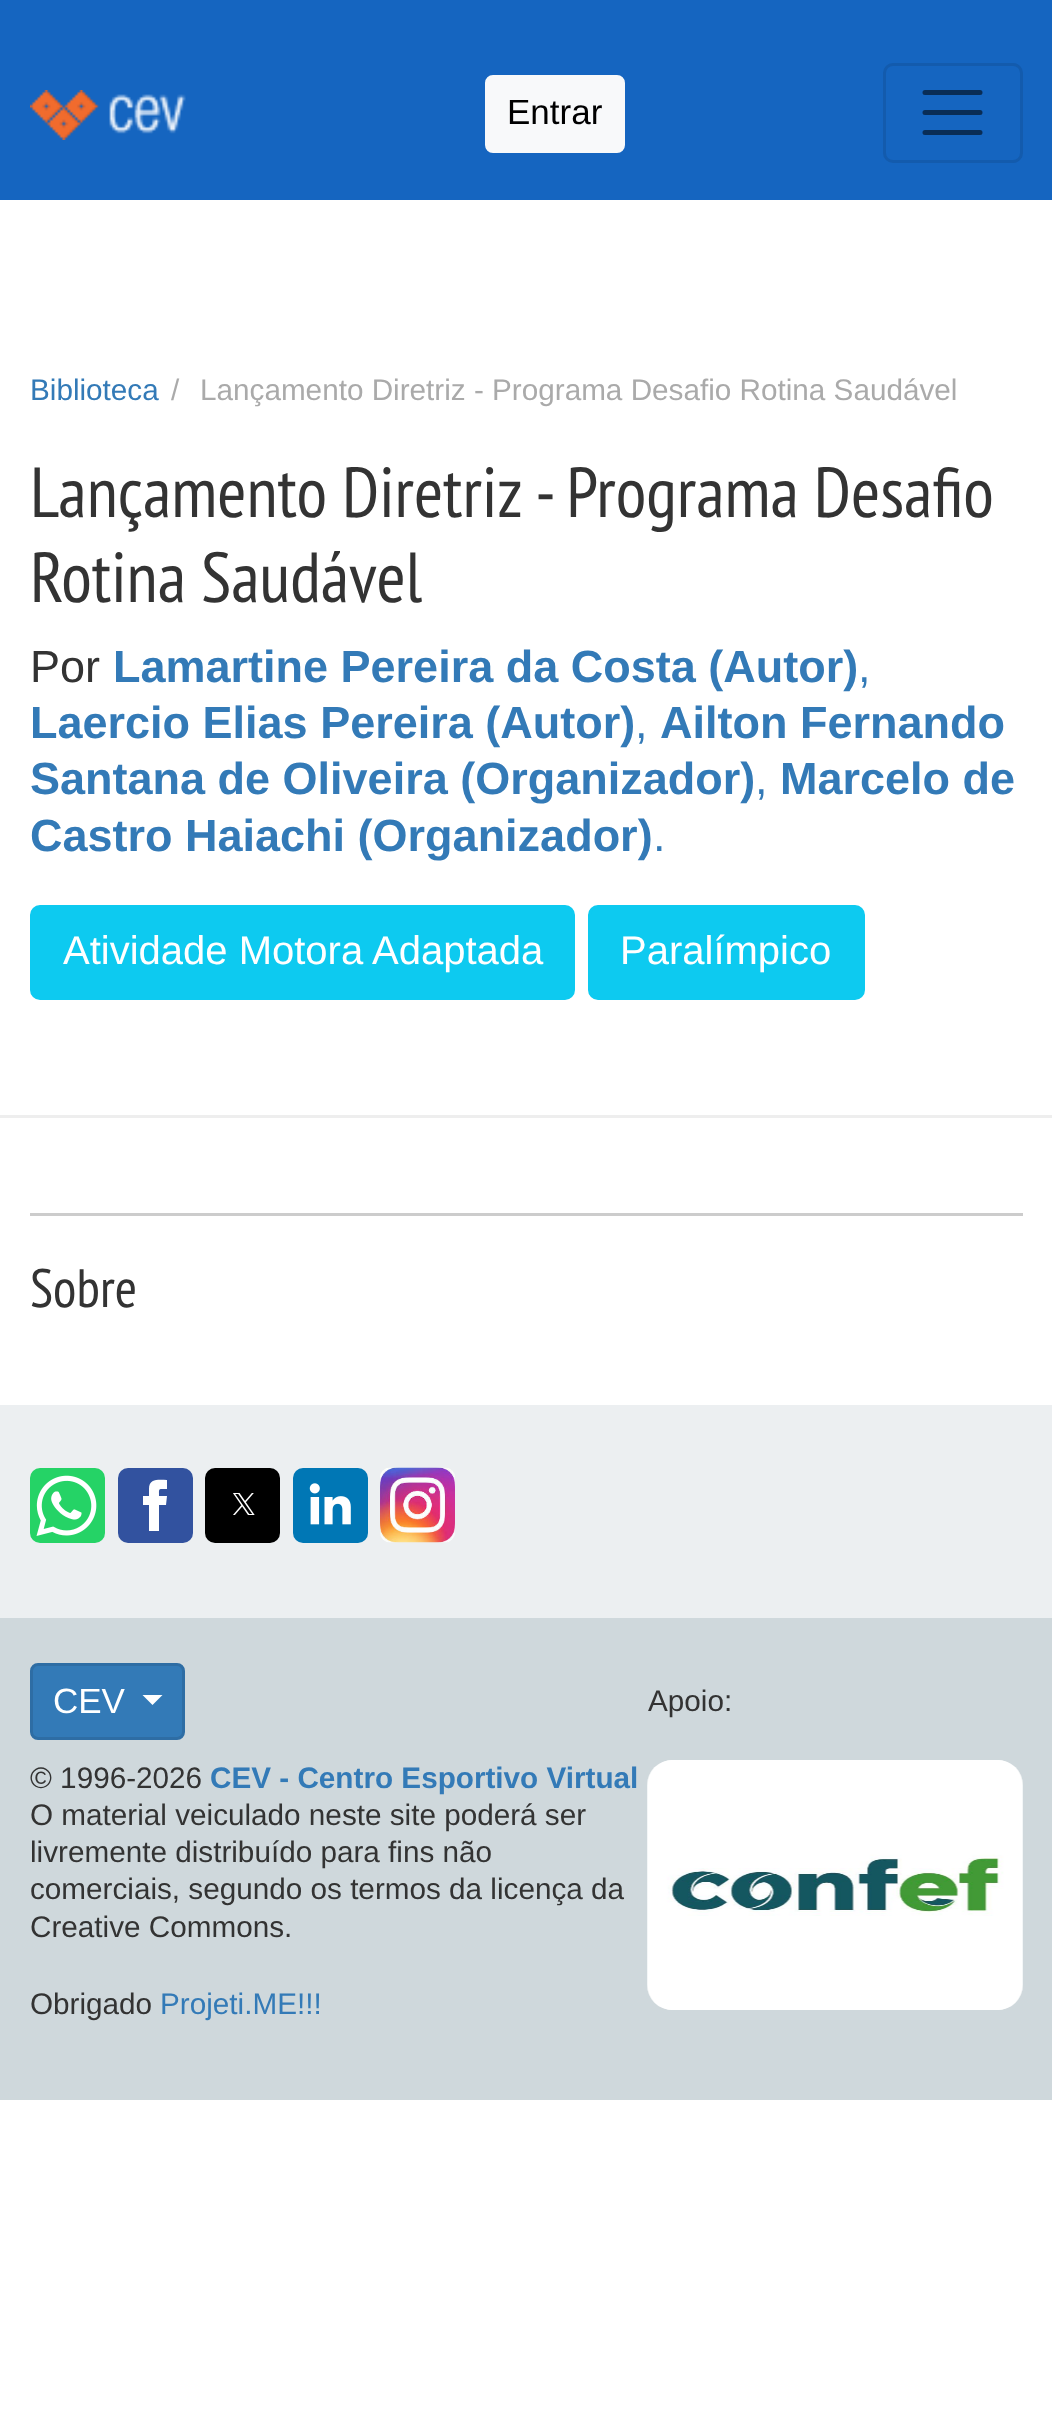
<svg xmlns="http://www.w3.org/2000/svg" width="1052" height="2436">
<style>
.a{font:35px Liberation Sans;fill:#000}
.b{font:29.7px Liberation Sans;fill:#337ab7}
.c{font:29.7px Liberation Sans;fill:#aaa}
.d{font:70.75px PT Sans Narrow;fill:#333}
.e{font:45px Liberation Sans;fill:#333}
.f{font:bold 45px Liberation Sans;fill:#337ab7}
.g{font:45px Liberation Sans;fill:#337ab7}
.h{font:40px Liberation Sans;fill:#fff}
.i{font:54px PT Sans Narrow;fill:#333}
.j{font:35px Liberation Sans;fill:#fff}
.k{font:29.7px Liberation Sans;fill:#333}
.l{font:bold 29.7px Liberation Sans;fill:#337ab7}
</style>
<rect width="100%" height="100%" fill="#fff"/>
<path fill="#1565c0" d="M0 0h1052v200H0z"/>
<image href="1.png" x="30" y="90" width="156" height="50"/>
<rect fill="#f8f9fa" stroke="#f8f9fa" stroke-width="3" x="486.5" y="76.5" width="137" height="75" rx="6.5"/>
<rect fill="none" stroke="#135bad" stroke-width="3" x="884.5" y="64.5" width="137" height="97" rx="8.5"/>
<path fill="none" stroke="#092d56" stroke-width="5" stroke-linecap="round" d="M925 92.5h55m-55 20h55m-55 20h55"/>
<path fill="#eee" d="M0 1115h1052v3H0z"/>
<rect fill="#0dcaf0" stroke="#0dcaf0" stroke-width="3" x="31.5" y="906.5" width="542" height="92" rx="8.5"/>
<rect fill="#0dcaf0" stroke="#0dcaf0" stroke-width="3" x="589.5" y="906.5" width="274" height="92" rx="8.5"/>
<path fill="#ccc" d="M30 1213h993v3H30z"/>
<path fill="#eceff1" d="M0 1405h1052v213H0z"/>
<rect fill="#25d366" x="30" y="1468" width="75" height="75" rx="10"/>
<image href="2.png" x="36" y="1475" width="61" height="61"/>
<rect fill="#32529f" x="118" y="1468" width="75" height="75" rx="10"/>
<path fill="#fff" d="M149 1496h-6v9h6v26h10v-26h7l1-9h-8c0-8-1-7 8-7v-9c-8 0-18-2-18 9z"/>
<rect fill="#000" x="205" y="1468" width="75" height="75" rx="10"/>
<image href="3.png" x="233" y="1493" width="22" height="22"/>
<rect fill="#0077b5" x="293" y="1468" width="75" height="75" rx="10"/>
<image href="4.png" x="309" y="1483" width="42" height="42"/>
<image href="5.png" x="380" y="1467" width="75" height="76"/>
<path fill="#cfd8dc" d="M0 1618h1052v482H0z"/>
<rect fill="#337ab7" stroke="#2e6da4" stroke-width="3" x="31.5" y="1664.5" width="152" height="74" rx="6.5"/>
<path fill="#fff" d="M142.5 1695h20l-10 10z"/>
<image href="6.png" x="647" y="1760" width="376" height="250"/>
<image href="7.png" x="647" y="1760" width="376" height="250"/>
<text class="a" x="507" y="124">Entrar</text>
<text class="b" x="30" y="400">Biblioteca</text>
<text class="c" x="171" y="400">/</text>
<text class="c" x="200" y="400">Lançamento Diretriz - Programa Desafio Rotina Saudável</text>
<text class="d" x="30" y="517">Lançamento Diretriz - Programa Desafio</text>
<text class="d" x="30" y="602">Rotina Saudável</text>
<text class="e" x="30" y="682">Por</text>
<text class="f" x="113" y="682">Lamartine Pereira da Costa (Autor)</text>
<text class="g" x="858" y="682">,</text>
<text class="f" x="30" y="738">Laercio Elias Pereira (Autor)</text>
<text class="g" x="635" y="738">,</text>
<text class="f" x="660" y="738">Ailton Fernando</text>
<text class="f" x="30" y="794">Santana de Oliveira (Organizador)</text>
<text class="g" x="755" y="794">,</text>
<text class="f" x="780" y="794">Marcelo de</text>
<text class="f" x="30" y="851">Castro Haiachi (Organizador)</text>
<text class="g" x="653" y="851">.</text>
<text class="h" x="63" y="964">Atividade Motora Adaptada</text>
<text class="h" x="620" y="964">Paralímpico</text>
<text class="i" x="30" y="1307">Sobre</text>
<text class="j" x="53" y="1713">CEV</text>
<text class="k" x="648" y="1711">Apoio:</text>
<text class="k" x="30" y="1788">© 1996-2026</text>
<text class="l" x="210" y="1788">CEV - Centro Esportivo Virtual</text>
<text class="k" x="30" y="1825">O material veiculado neste site poderá ser</text>
<text class="k" x="30" y="1862">livremente distribuído para fins não</text>
<text class="k" x="30" y="1899">comerciais, segundo os termos da licença da</text>
<text class="k" x="30" y="1937">Creative Commons.</text>
<text class="k" x="30" y="2014">Obrigado</text>
<text class="b" x="160" y="2014">Projeti.ME!!!</text>
</svg>
